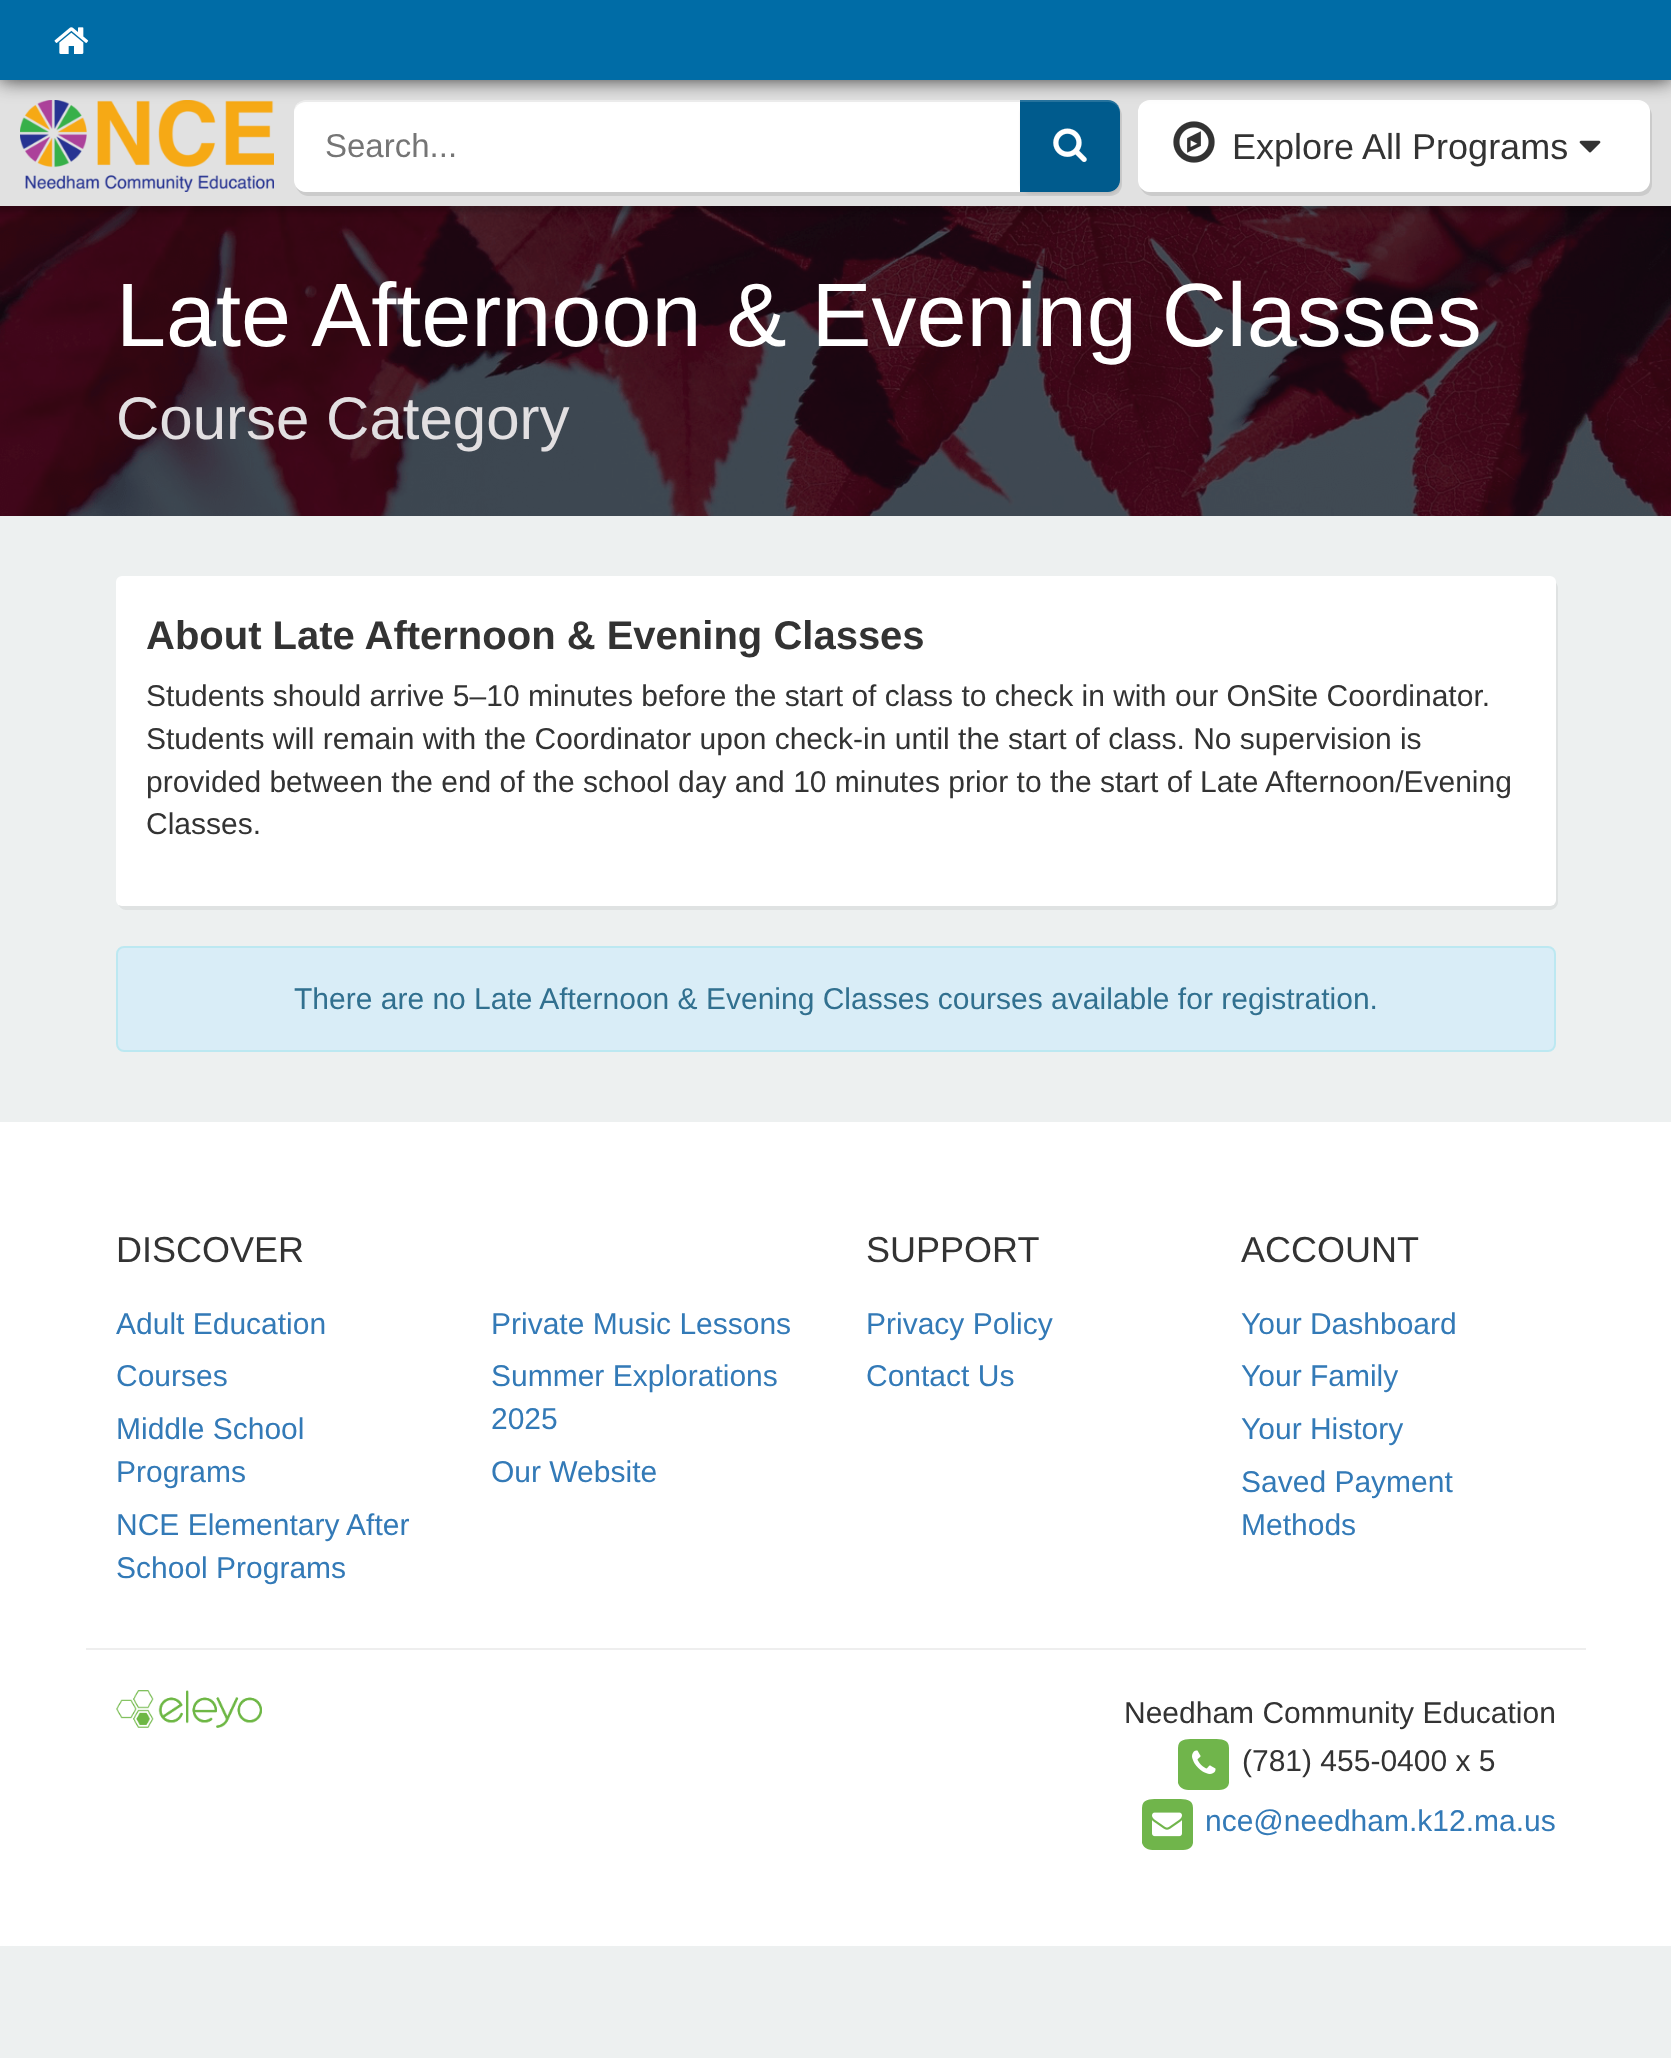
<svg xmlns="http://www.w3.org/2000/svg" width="1671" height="2058">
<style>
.a{font:33px Liberation Sans;fill:#757575}
.b{font:36px Liberation Sans;fill:#333}
.c{font:90px Liberation Sans;fill:#fff}
.d{font:60px Liberation Sans;fill:#e2dfe1}
.e{font:bold 40px Liberation Sans;fill:#333}
.f{font:30px Liberation Sans;fill:#333}
.g{font:30px Liberation Sans;fill:#31708f}
.h{font:30px Liberation Sans;fill:#337ab7}
</style>
<rect width="100%" height="100%" fill="#edf0f0"/>
<image href="6.png" x="0" y="206" width="1671" height="310"/>
<path fill="#00000033" filter="blur(2px)" d="M-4 78h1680v134H-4z"/>
<path fill="#e1e1e1" d="M0 80h1671v126H0z"/>
<image href="2.png" x="20" y="100" width="254" height="92"/>
<path fill="#cbcbcb" d="M296 187c2 5 7 9 12 9h802c7 0 12-5 12-12v-68c0-3-1-5-2-7v3v68c0 7-5 12-12 12h-802c-4 0-7-2-10-5z"/>
<path fill="#fff" d="M306 100h716v92h-716c-6.5 0-12-5.5-12-12v-68c0-6.5 5.5-12 12-12z"/>
<path fill="#00000012" d="M306 102h716v-2h-716c-8 0-12 7-12 14c0-7 5-12 12-12z"/>
<rect fill="#00000012" filter="blur(1px)" x="1020" y="102" width="100" height="92" rx="12"/>
<path fill="#005b8d" d="M1020 100h88c6.5 0 12 5.5 12 12v68c0 6.5-5.5 12-12 12h-88z"/>
<path fill="#ffffff26" d="M1020 102h88c7 0 12 5 12 12v-2c0-7-5-12-12-12h-88z"/>
<path fill="#cbcbcb" d="M1140 187c2 5 7 9 12 9h488c7 0 12-5 12-12v-68c0-3-1-5-2-7v3v68c0 7-5 12-12 12h-488c-4 0-7-2-10-5z"/>
<rect fill="#fff" x="1138" y="100" width="512" height="92" rx="12"/>
<path fill="#333" filter="blur(10px)" d="M0 0h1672v80H0z"/>
<path fill="#006ca6" d="M0 0h1671v80H0z"/>
<image href="1.png" x="54" y="27" width="35" height="27"/>
<image href="3.png" x="1053" y="128" width="34" height="34"/>
<image href="4.png" x="1173" y="121" width="42" height="42"/>
<image href="5.png" x="1579" y="140" width="22" height="13"/>
<path fill="#dfe2e2" d="M118 903c1 4 4 7 8 7h1424c4 0 8-4 8-8v-314c0-2-1-4-2-5v315c0 4-4 8-8 8h-1424c-2 0-4-1-6-3z"/>
<rect fill="#fff" x="116" y="576" width="1440" height="330" rx="6"/>
<rect fill="#d9edf7" stroke="#bce8f1" stroke-width="2" x="117" y="947" width="1438" height="104" rx="7"/>
<path fill="#fff" d="M0 1122h1671v824H0z"/>
<path fill="#eee" d="M86 1648h1500v2H86z"/>
<image href="7.png" x="116" y="1690" width="146" height="38"/>
<path fill="#70b54b" d="M1229 1748v35c-1 7-8 7-15 7h-21c-6 0-13 0-15-7v-35c0-9 8-9 15-9h21c7 0 15 0 15 9z"/>
<image href="8.png" x="1192" y="1750" width="24" height="24"/>
<path fill="#70b54b" d="M1193 1808v35c-1 7-8 7-15 7h-21c-6 0-13 0-15-7v-35c0-9 8-9 15-9h21c7 0 15 0 15 9z"/>
<image href="9.png" x="1152" y="1812" width="30" height="25"/>
<text class="a" x="325" y="157">Search...</text>
<text class="b" x="1232" y="159">Explore All Programs</text>
<text class="c" x="116" y="346">Late Afternoon &amp; Evening Classes</text>
<text class="d" x="116" y="439">Course Category</text>
<text class="e" x="146" y="649">About Late Afternoon &amp; Evening Classes</text>
<text class="f" x="146" y="706">Students should arrive 5–10 minutes before the start of class to check in with our OnSite Coordinator.</text>
<text class="f" x="146" y="749">Students will remain with the Coordinator upon check-in until the start of class. No supervision is</text>
<text class="f" x="146" y="792">provided between the end of the school day and 10 minutes prior to the start of Late Afternoon/Evening</text>
<text class="f" x="146" y="834">Classes.</text>
<text class="g" x="294" y="1009">There are no Late Afternoon &amp; Evening Classes courses available for registration.</text>
<text class="b" x="116" y="1262">DISCOVER</text>
<text class="h" x="116" y="1334">Adult Education</text>
<text class="h" x="116" y="1386">Courses</text>
<text class="h" x="116" y="1439">Middle School</text>
<text class="h" x="116" y="1482">Programs</text>
<text class="h" x="116" y="1535">NCE Elementary After</text>
<text class="h" x="116" y="1578">School Programs</text>
<text class="h" x="491" y="1334">Private Music Lessons</text>
<text class="h" x="491" y="1386">Summer Explorations</text>
<text class="h" x="491" y="1429">2025</text>
<text class="h" x="491" y="1482">Our Website</text>
<text class="b" x="866" y="1262">SUPPORT</text>
<text class="h" x="866" y="1334">Privacy Policy</text>
<text class="h" x="866" y="1386">Contact Us</text>
<text class="b" x="1241" y="1262">ACCOUNT</text>
<text class="h" x="1241" y="1334">Your Dashboard</text>
<text class="h" x="1241" y="1386">Your Family</text>
<text class="h" x="1241" y="1439">Your History</text>
<text class="h" x="1241" y="1492">Saved Payment</text>
<text class="h" x="1241" y="1535">Methods</text>
<text class="f" x="1124" y="1723">Needham Community Education</text>
<text class="f" x="1242" y="1771">(781) 455-0400 x 5</text>
<text class="h" x="1205" y="1831">nce@needham.k12.ma.us</text>
</svg>
